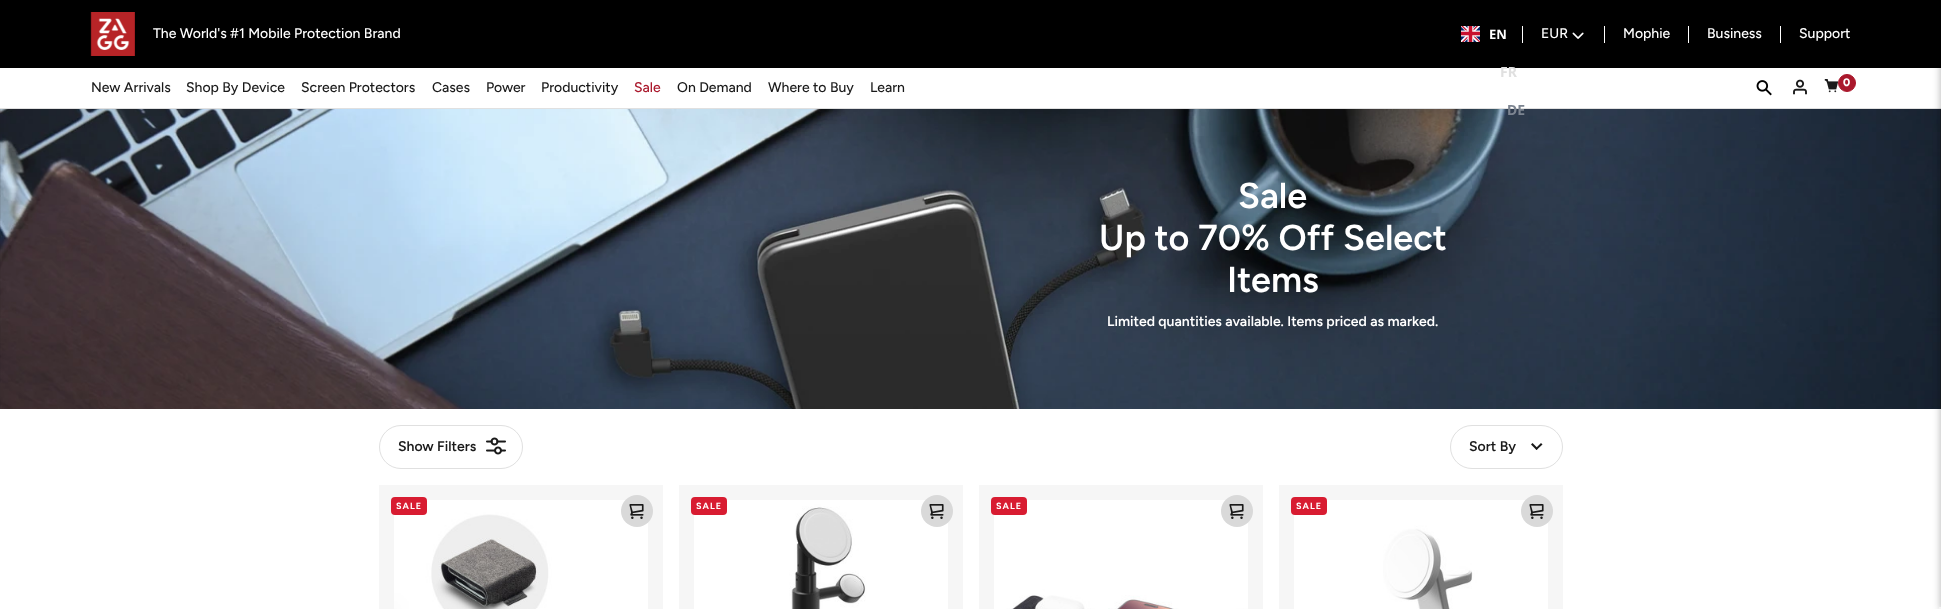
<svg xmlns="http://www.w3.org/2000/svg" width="1941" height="609">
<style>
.a{font:500 14px Figtree;fill:#fff}
.b{font:bold 13px Noto Sans;fill:#fff}
.c{font:bold 14px Noto Sans;fill:#e0e0e0}
.d{font:bold 14px Noto Sans;fill:#7c8490}
.e{font:500 14px Figtree;fill:#1a1a1a}
.f{font:500 14px Figtree;fill:#aa182c}
.g{font:800 11px Figtree;fill:#fff}
.h{font:600 36px Figtree;fill:#fff}
.i{font:600 14px Figtree;fill:#fff}
.j{font:600 14px Figtree;fill:#1a1a1a}
.k{font:bold 9px Figtree;letter-spacing:1px;fill:#fff}
</style>
<rect width="100%" height="100%" fill="#fff"/>
<path fill="#000" d="M0 0h1941v68H0z"/>
<path fill="#e0e0e0" d="M0 108h1941v1H0z"/>
<image href="1.png" x="90" y="12" width="45" height="44"/>
<image href="2.png" x="1461" y="26" width="19" height="16"/>
<path fill="#fff" d="M1604 26h1v17H1604z"/>
<path fill="#fff" d="M1522 26h1v17H1522z"/>
<image href="3.png" x="1572" y="32" width="12" height="7"/>
<path fill="#fff" d="M1688 26h1v17H1688z"/>
<path fill="#fff" d="M1780 26h1v17H1780z"/>
<image href="4.png" x="1756" y="80" width="16" height="16"/>
<image href="5.png" x="1793" y="79" width="14" height="16"/>
<image href="6.png" x="1824" y="79" width="15" height="14"/>
<circle fill="#aa182c" stroke="#aa182c" cx="1847" cy="83" r="8.5"/>
<path fill="#1a1a1a" d="M0 109h1941v300H0z"/>
<image href="7.png" x="0" y="109" width="1941" height="300"/>
<rect fill="none" stroke="#e0e0e0" x="379.5" y="425.5" width="143" height="43" rx="21.5"/>
<image href="8.png" x="486" y="437" width="20" height="18"/>
<rect fill="none" stroke="#e0e0e0" x="1450.5" y="425.5" width="112" height="43" rx="21.5"/>
<path fill="#1a1a1a" d="M1541 443l1.5 1.5l-6 5.5l-1-1.5z"/>
<path fill="#1a1a1a" d="M1532.5 443l5.5 5.5l-1.5 1.5l-5.5-5.5z"/>
<path fill="#f6f6f6" d="M379 485h284v124H379z"/>
<image href="9.png" x="394" y="500" width="254" height="109"/>
<rect fill="#d81c31" x="391" y="497" width="36" height="18" rx="4"/>
<circle fill="#d9d9d9" cx="637" cy="511" r="16"/>
<image href="10.png" x="629" y="504" width="15" height="15"/>
<path fill="#f6f6f6" d="M679 485h284v124H679z"/>
<image href="11.png" x="694" y="500" width="254" height="109"/>
<rect fill="#d81c31" x="691" y="497" width="36" height="18" rx="4"/>
<circle fill="#d9d9d9" cx="937" cy="511" r="16"/>
<image href="10.png" x="929" y="504" width="15" height="15"/>
<path fill="#f6f6f6" d="M979 485h284v124H979z"/>
<image href="12.png" x="994" y="500" width="254" height="109"/>
<rect fill="#d81c31" x="991" y="497" width="36" height="18" rx="4"/>
<circle fill="#d9d9d9" cx="1237" cy="511" r="16"/>
<image href="10.png" x="1229" y="504" width="15" height="15"/>
<path fill="#f6f6f6" d="M1279 485h284v124H1279z"/>
<image href="13.png" x="1294" y="500" width="254" height="109"/>
<rect fill="#d81c31" x="1291" y="497" width="36" height="18" rx="4"/>
<circle fill="#d9d9d9" cx="1537" cy="511" r="16"/>
<image href="10.png" x="1529" y="504" width="15" height="15"/>
<path fill="#00000040" filter="blur(3.5px)" d="M1940 1h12v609H1940z"/>
<path fill="#f5f5f5" d="M1939 607h2v2H1939z"/>
<text class="a" x="153" y="38">The World's #1 Mobile Protection Brand</text>
<text class="b" x="1489" y="39">EN</text>
<text class="c" x="1500" y="77">FR</text>
<text class="d" x="1507" y="115">DE</text>
<text class="a" x="1541" y="38">EUR</text>
<text class="a" x="1623" y="38">Mophie</text>
<text class="a" x="1707" y="38">Business</text>
<text class="a" x="1799" y="38">Support</text>
<text class="e" x="91" y="92">New Arrivals</text>
<text class="e" x="186" y="92">Shop By Device</text>
<text class="e" x="301" y="92">Screen Protectors</text>
<text class="e" x="432" y="92">Cases</text>
<text class="e" x="486" y="92">Power</text>
<text class="e" x="541" y="92">Productivity</text>
<text class="f" x="634" y="92">Sale</text>
<text class="e" x="677" y="92">On Demand</text>
<text class="e" x="768" y="92">Where to Buy</text>
<text class="e" x="870" y="92">Learn</text>
<text class="g" x="1843" y="86">0</text>
<text class="h" x="1238" y="208">Sale</text>
<text class="h" x="1099" y="250">Up to 70% Off Select</text>
<text class="h" x="1227" y="292">Items</text>
<text class="i" x="1107" y="326">Limited quantities available. Items priced as marked.</text>
<text class="j" x="398" y="451">Show Filters</text>
<text class="j" x="1469" y="451">Sort By</text>
<text class="k" x="396" y="509">SALE</text>
<text class="k" x="696" y="509">SALE</text>
<text class="k" x="996" y="509">SALE</text>
<text class="k" x="1296" y="509">SALE</text>
</svg>
